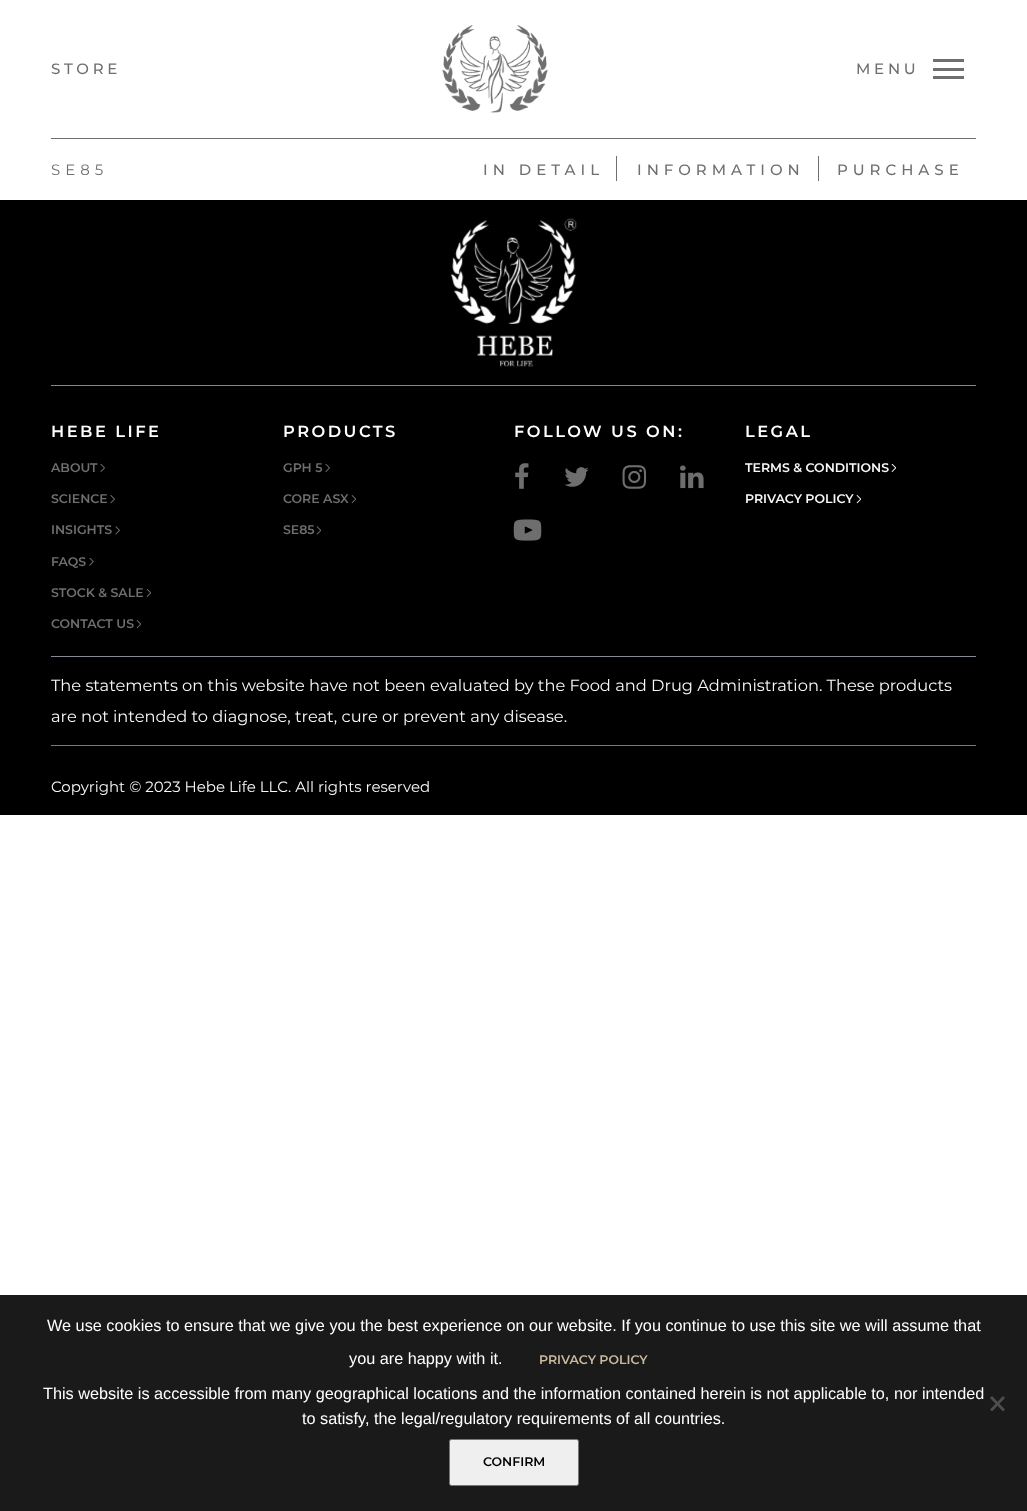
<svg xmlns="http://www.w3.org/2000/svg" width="1027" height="1511">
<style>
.a{font:500 15px Montserrat;letter-spacing:3.75px;fill:#706f6f}
.b{font:15px Montserrat;letter-spacing:5px;fill:#706f6f}
.c{font:500 15px Montserrat;letter-spacing:5px;fill:#706f6f}
.d{font:600 16.25px Montserrat;letter-spacing:2.5px;fill:#fff}
.e{font:600 12.5px Montserrat;fill:#706f6f}
.f{font:600 12.5px Montserrat;fill:#f8f8f8}
.g{font:16.25px Montserrat;fill:#f8f8f8}
.h{font:15px Montserrat;fill:#f8f8f8}
.i{font:16.25px Liberation Sans;fill:#fff}
.j{font:600 12.5px Montserrat;fill:#cbbba0}
.k{font:600 12.5px Montserrat;fill:#000}
</style>
<rect width="100%" height="100%" fill="#fff"/>
<path fill="#706f6f" d="M51 138h925v1H51z"/>
<image href="1.png" x="442" y="25" width="106" height="88"/>
<path fill="#706f6f" d="M933 59h31v3H933z"/>
<path fill="#706f6f" d="M933 68h31v3H933z"/>
<path fill="#706f6f" d="M933 76h31v3H933z"/>
<path fill="#706f6f" d="M616 156h1v25H616z"/>
<path fill="#706f6f" d="M818 156h1v25H818z"/>
<path fill="#000" d="M0 200h1027v615H0z"/>
<image href="2.png" x="451" y="218" width="126" height="149"/>
<path fill="#848991" d="M51 385h925v1H51z"/>
<path fill="#848991" d="M51 656h925v1H51z"/>
<image href="3.png" x="100" y="464" width="5" height="8"/>
<image href="4.png" x="110" y="495" width="5" height="9"/>
<image href="5.png" x="115" y="526" width="5" height="9"/>
<image href="6.png" x="89" y="558" width="5" height="8"/>
<image href="7.png" x="146" y="589" width="5" height="8"/>
<image href="8.png" x="136" y="620" width="5" height="9"/>
<image href="3.png" x="325" y="464" width="5" height="8"/>
<image href="8.png" x="351" y="495" width="5" height="9"/>
<image href="9.png" x="316" y="526" width="5" height="9"/>
<image href="10.png" x="515" y="463" width="14" height="26"/>
<image href="11.png" x="564" y="467" width="25" height="20"/>
<image href="12.png" x="622" y="465" width="25" height="24"/>
<image href="13.png" x="680" y="465" width="24" height="24"/>
<image href="14.png" x="513" y="519" width="29" height="22"/>
<image href="15.png" x="891" y="464" width="5" height="8"/>
<image href="16.png" x="856" y="495" width="5" height="9"/>
<path fill="#77797d" d="M51 745h925v1H51z"/>
<path fill="#1a1a1a" d="M0 1295h1027v216H0z"/>
<path fill="#4d4d4d" d="M1003 1396l2 2l-13 13.5l-2-2z"/>
<path fill="#4d4d4d" d="M990 1398l2-2l13 13.5l-2 2z"/>
<rect fill="#efefef" stroke="#767676" x="449.5" y="1439.5" width="129" height="46" rx="2"/>
<text class="a" x="51" y="74">STORE</text>
<text class="a" x="856" y="74">MENU</text>
<text class="b" x="51" y="175">SE85</text>
<text class="c" x="483" y="175">IN DETAIL</text>
<text class="c" x="637" y="175">INFORMATION</text>
<text class="c" x="837" y="175">PURCHASE</text>
<text class="d" x="51" y="437">HEBE LIFE</text>
<text class="e" x="51" y="472">ABOUT</text>
<text class="e" x="51" y="503">SCIENCE</text>
<text class="e" x="51" y="534">INSIGHTS</text>
<text class="e" x="51" y="566">FAQS</text>
<text class="e" x="51" y="597">STOCK &amp; SALE</text>
<text class="e" x="51" y="628">CONTACT US</text>
<text class="d" x="283" y="437">PRODUCTS</text>
<text class="e" x="283" y="472">GPH 5</text>
<text class="e" x="283" y="503">CORE ASX</text>
<text class="e" x="283" y="534">SE85</text>
<text class="d" x="514" y="437">FOLLOW US ON:</text>
<text class="d" x="745" y="437">LEGAL</text>
<text class="f" x="745" y="472">TERMS &amp; CONDITIONS</text>
<text class="f" x="745" y="503">PRIVACY POLICY</text>
<text class="g" x="51" y="691">The statements on this website have not been evaluated by the Food and Drug Administration. These products</text>
<text class="g" x="51" y="722">are not intended to diagnose, treat, cure or prevent any disease.</text>
<text class="h" x="51" y="792">Copyright © 2023 Hebe Life LLC. All rights reserved</text>
<text class="i" x="47" y="1331">We use cookies to ensure that we give you the best experience on our website. If you continue to use this site we will assume that</text>
<text class="i" x="349" y="1364">you are happy with it.</text>
<text class="j" x="539" y="1364">PRIVACY POLICY</text>
<text class="i" x="43" y="1399">This website is accessible from many geographical locations and the information contained herein is not applicable to, nor intended</text>
<text class="i" x="302" y="1424">to satisfy, the legal/regulatory requirements of all countries.</text>
<text class="k" x="483" y="1466">CONFIRM</text>
</svg>
